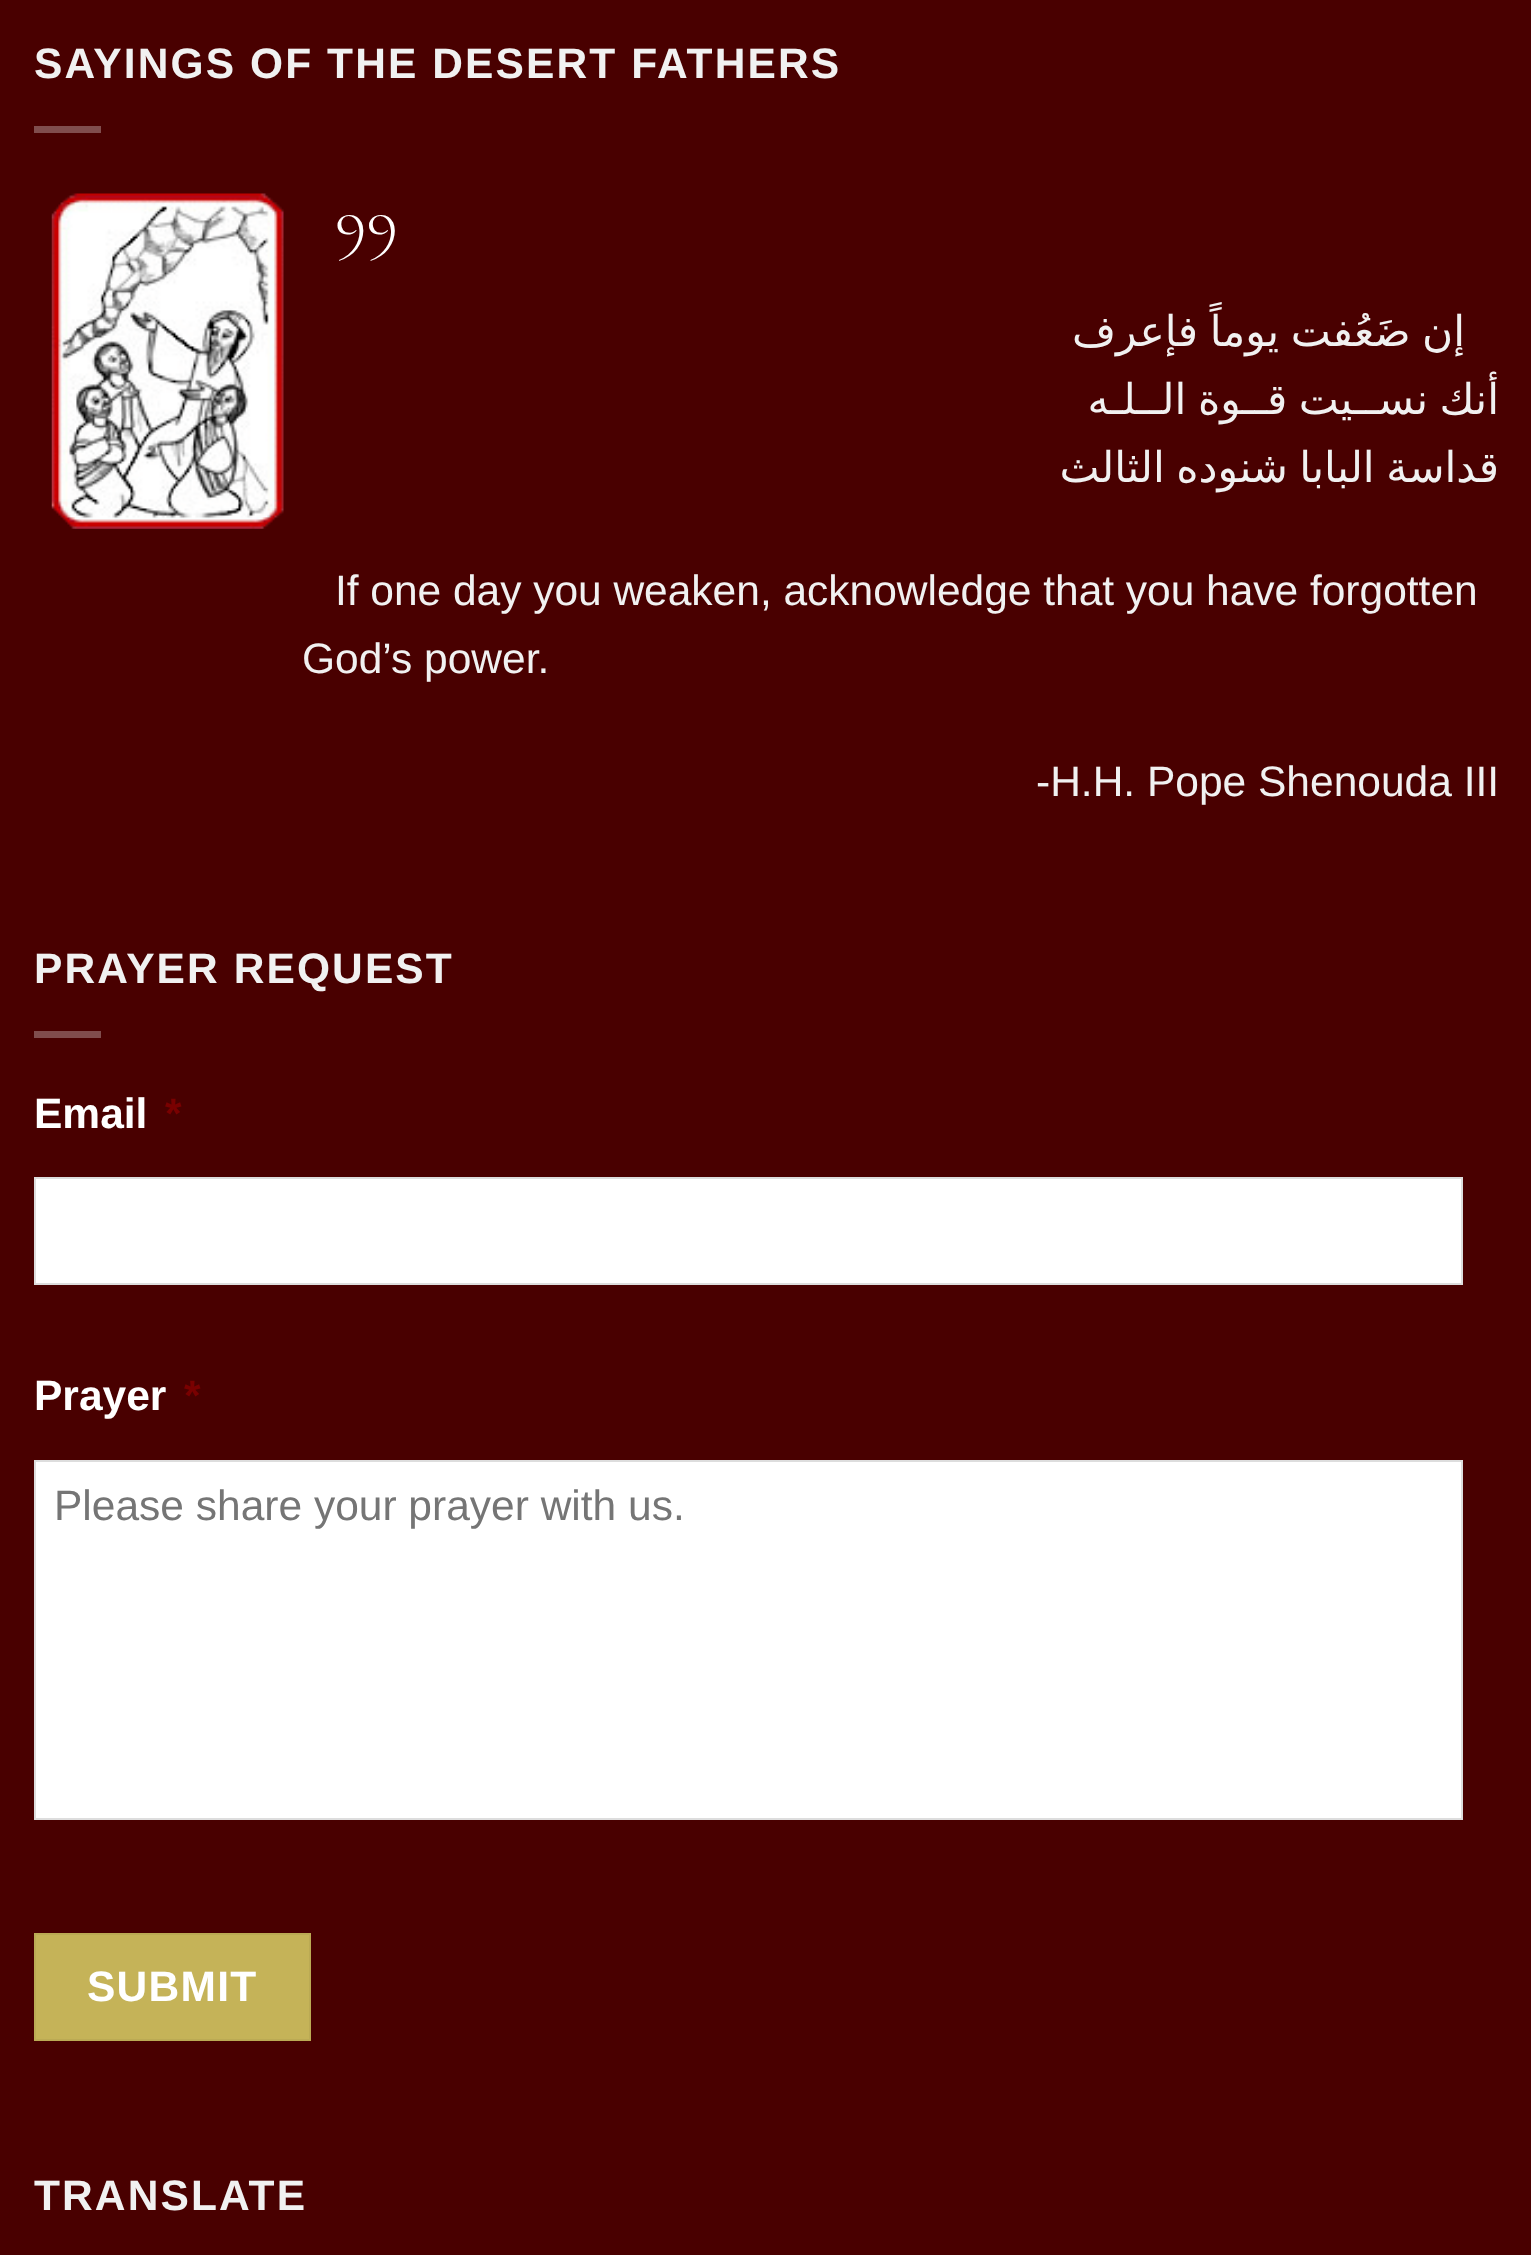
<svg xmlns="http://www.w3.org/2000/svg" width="1531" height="2255">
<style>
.a{font:bold 42.5px Liberation Sans;letter-spacing:2.1px;fill:#f1f1f1}
.b{font:300 68px Cormorant Garamond;fill:#fff}
.c{font:42.5px DejaVu Sans;direction:rtl;fill:#f1f1f1}
.d{font:42.5px Liberation Sans;fill:#f1f1f1}
.e{font:bold 42.5px Liberation Sans;fill:#fff}
.f{font:bold 42.5px Liberation Sans;fill:#790000}
.g{font:42.5px Liberation Sans;fill:#757575}
.h{font:bold 42.5px Liberation Sans;letter-spacing:1.25px;fill:#fff}
</style>
<rect width="100%" height="100%" fill="#490000"/>
<path fill="#804d4d" d="M34 126h67v7H34z"/>
<image href="1.png" x="51" y="193" width="233" height="336"/>
<path fill="#804d4d" d="M34 1031h67v7H34z"/>
<path fill="#fff" stroke="#ddd" stroke-width="2" d="M35 1178h1427v106H35z"/>
<path fill="#fff" stroke="#ddd" stroke-width="2" d="M35 1461h1427v358H35z"/>
<path fill="#c5b358" stroke="#bbaa54" stroke-width="2" d="M35 1934h275v106H35z"/>
<text class="a" x="34" y="78">SAYINGS OF THE DESERT FATHERS</text>
<text class="b" x="335" y="242">99</text>
<text class="c" x="1465" y="346" word-spacing="-2">إن ضَعُفت يوماً فإعرف</text>
<text class="c" x="1499" y="414" word-spacing="-2">أنك نســيت قــوة الــلـه</text>
<text class="c" x="1499" y="482" word-spacing="-2">قداسة البابا شنوده الثالث</text>
<text class="d" x="335" y="605" word-spacing="-0.1">If one day you weaken, acknowledge that you have forgotten</text>
<text class="d" x="302" y="673">God’s power.</text>
<text class="d" x="1036" y="796">-H.H. Pope Shenouda III</text>
<text class="a" x="34" y="983">PRAYER REQUEST</text>
<text class="e" x="34" y="1128">Email</text>
<text class="f" x="165" y="1128">*</text>
<text class="e" x="34" y="1410">Prayer</text>
<text class="f" x="184" y="1410">*</text>
<text class="g" x="54" y="1520">Please share your prayer with us.</text>
<text class="h" x="87" y="2001">SUBMIT</text>
<text class="a" x="34" y="2210">TRANSLATE</text>
</svg>
